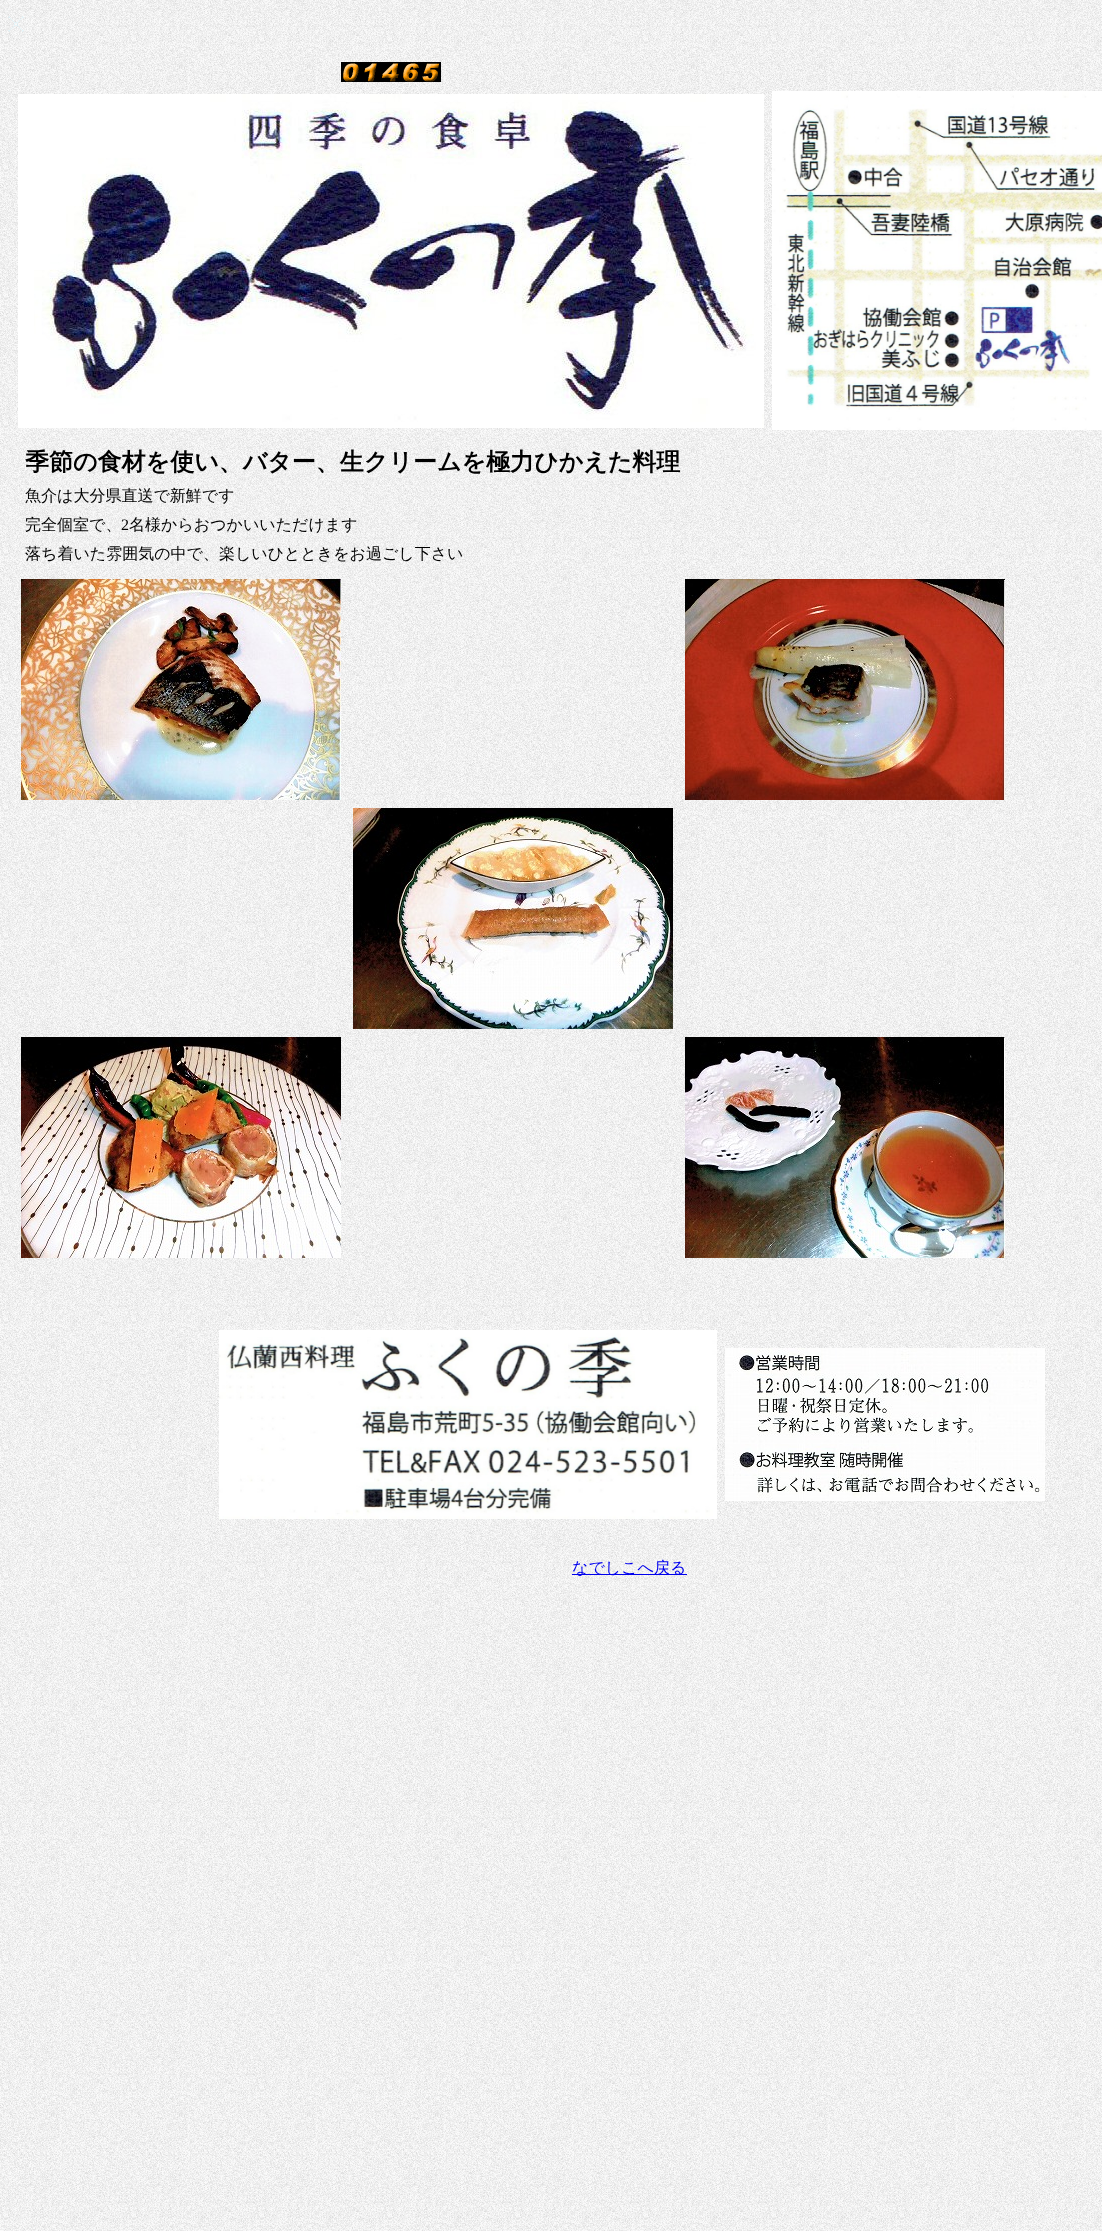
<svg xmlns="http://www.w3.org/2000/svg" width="1102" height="2231">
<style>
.a{font:bold 24px WenQuanYi Zen Hei;fill:#000}
.b{font:500 16px WenQuanYi Zen Hei;fill:#000}
.c{font:16px Liberation Serif;fill:#000}
.d{font:500 16px WenQuanYi Zen Hei;fill:#00e}
</style>
<rect width="100%" height="100%" fill="#fff"/>
<image href="1.png" x="0" y="0" width="1102" height="2231"/>
<image href="2.png" x="8" y="16" width="16" height="16"/>
<image href="3.png" x="341" y="62" width="100" height="20"/>
<image href="4.png" x="18" y="94" width="746" height="334"/>
<image href="5.png" x="772" y="91" width="330" height="339"/>
<image href="6.png" x="21" y="579" width="320" height="221"/>
<image href="7.png" x="685" y="579" width="320" height="221"/>
<image href="8.png" x="353" y="808" width="320" height="221"/>
<image href="9.png" x="21" y="1037" width="320" height="221"/>
<image href="10.png" x="685" y="1037" width="320" height="221"/>
<image href="11.png" x="219" y="1330" width="498" height="189"/>
<image href="12.png" x="725" y="1348" width="320" height="153"/>
<path fill="#00e" d="M572 1574h115v1H572z"/>
<text class="a" x="25" y="470">季節の食材を使い、バター、生クリームを極力ひかえた料理</text>
<text class="b" x="25" y="501">魚介は大分県直送で新鮮です</text>
<text class="b" x="25" y="530">完全個室で、</text>
<text class="c" x="121" y="530">2</text>
<text class="b" x="129" y="530">名様からおつかいいただけます</text>
<text class="b" x="25" y="559">落ち着いた雰囲気の中で、楽しいひとときをお過ごし下さい</text>
<text class="d" x="572" y="1573">なでしこへ戻る</text>
</svg>
